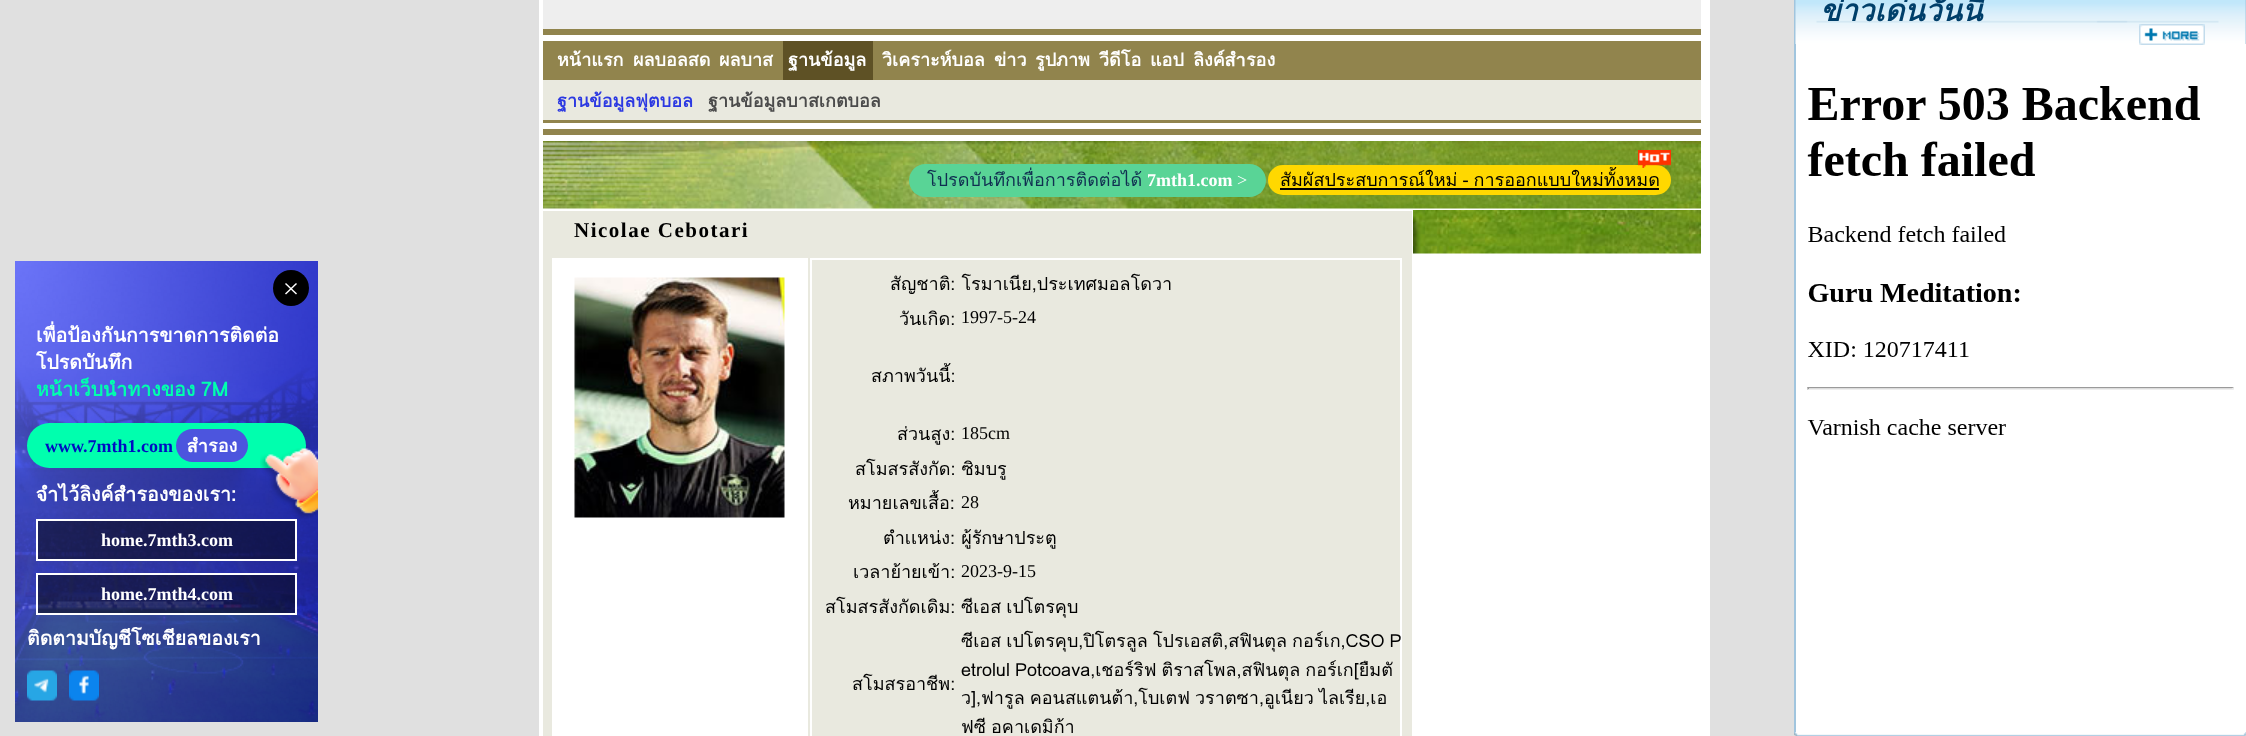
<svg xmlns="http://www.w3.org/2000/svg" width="2246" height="736">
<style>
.a{font:bold 19.5px Loma;fill:#fff}
.b{font:bold 19.5px Loma;fill:#00ffae}
.c{font:bold 18px Liberation Serif;fill:#000cc2}
.d{font:bold 18px Loma;fill:#fff}
.e{font:bold 18px Liberation Serif;fill:#fff}
.f{font:italic bold 30px Loma;fill:#003f6a}
.g{font:bold 18px Loma;fill:#2c39e2}
.h{font:bold 18px Loma;fill:#4b4b4b}
.i{font:18px Loma;fill:#102f51}
.j{font:18px Liberation Serif;fill:#fff}
.k{font:18px Loma;fill:#000}
.l{font:bold 21px Liberation Serif;letter-spacing:1.5px;fill:#000}
.m{font:18px Liberation Serif;fill:#000}
</style>
<rect width="100%" height="100%" fill="#e0e0e0"/>
<image href="1.png" x="15" y="261" width="303" height="461"/>
<circle fill="#000" cx="291" cy="288" r="18"/>
<path fill="#fff" d="M286 283l11 10.5l-1 1l-11-10.5z"/>
<path fill="#fff" d="M285 293.5l11-10.5l1 1l-11 10.5z"/>
<rect fill="#00ffae" x="27" y="423" width="279" height="45" rx="22.5"/>
<rect fill="#4c55de" x="176" y="429" width="72" height="33" rx="16.5"/>
<image href="2.png" x="260" y="448" width="58" height="71"/>
<path fill="#00000080" stroke="#fff" stroke-width="2" d="M37 520h259v40H37z"/>
<path fill="#00000080" stroke="#fff" stroke-width="2" d="M37 574h259v40H37z"/>
<image href="3.png" x="27" y="670" width="30" height="31"/>
<image href="4.png" x="69" y="670" width="30" height="31"/>
<path fill="#fff" d="M539 0h1171v736H539z"/>
<path fill="#eee" d="M543 0h1158v29H543z"/>
<image href="5.png" x="1794" y="0" width="452" height="44"/>
<path fill="#fff" d="M1796 44h450v688H1796z"/>
<image href="6.png" x="2139" y="24" width="66" height="21"/>
<path fill="#a1c5de" d="M1794 44h2v688H1794z"/>
<image href="7.png" x="1807" y="86" width="427" height="349"/>
<image href="8.png" x="1794" y="732" width="452" height="4"/>
<path fill="#91844d" d="M543 29h1158v6H543z"/>
<path fill="#91844d" d="M543 41h1158v82H543z"/>
<path fill="#5e5125" d="M783 41h90v39H783z"/>
<path fill="#e9e9df" d="M543 80h1158v40H543z"/>
<path fill="#91844d" d="M543 129h1158v6H543z"/>
<image href="9.png" x="543" y="141" width="870" height="68"/>
<image href="10.png" x="1413" y="141" width="288" height="68"/>
<rect fill="#59d496" x="909" y="164" width="357" height="33" rx="16.5"/>
<rect fill="#ffd800" x="1268" y="165" width="403" height="30" rx="15"/>
<path fill="#000" d="M1280 188h379v2H1280z"/>
<path fill="#e9e9df" d="M543 211h869v525H543z"/>
<path fill="#fff" d="M554 260h252v476H554z"/>
<path fill="#fff" d="M552 258h255v2H552z"/>
<path fill="#fff" d="M806 258h2v478H806z"/>
<path fill="#fff" d="M552 258h2v478H552z"/>
<image href="12.png" x="574" y="277" width="211" height="241"/>
<path fill="#fff" d="M810 258h591v2H810z"/>
<path fill="#fff" d="M1400 258h2v478H1400z"/>
<path fill="#fff" d="M810 258h2v478H810z"/>
<image href="13.png" x="1413" y="210" width="288" height="44"/>
<text class="a" x="36" y="342">เพื่อป้องกันการขาดการติดต่อ</text>
<text class="a" x="36" y="369">โปรดบันทึก</text>
<text class="b" x="36" y="396" word-spacing="-1">หน้าเว็บนำทางของ 7M</text>
<text class="c" x="45" y="452">www.7mth1.com</text>
<text class="d" x="187" y="452">สำรอง</text>
<text class="a" x="36" y="501">จำไว้ลิงค์สำรองของเรา:</text>
<text class="e" x="101" y="546">home.7mth3.com</text>
<text class="e" x="101" y="600">home.7mth4.com</text>
<text class="a" x="27" y="645">ติดตามบัญชีโซเชียลของเรา</text>
<text class="f" x="1820" y="21">ข่าวเด่นวันนี้</text>
<text class="d" x="557" y="66">หน้าแรก</text>
<text class="d" x="633" y="66">ผลบอลสด</text>
<text class="d" x="719" y="66">ผลบาส</text>
<text class="d" x="788" y="66">ฐานข้อมูล</text>
<text class="d" x="882" y="66">วิเคราะห์บอล</text>
<text class="d" x="994" y="66">ข่าว</text>
<text class="d" x="1035" y="66">รูปภาพ</text>
<text class="d" x="1099" y="66">วีดีโอ</text>
<text class="d" x="1150" y="66">แอป</text>
<text class="d" x="1193" y="66">ลิงค์สำรอง</text>
<text class="g" x="557" y="107">ฐานข้อมูลฟุตบอล</text>
<text class="h" x="708" y="107">ฐานข้อมูลบาสเกตบอล</text>
<text class="i" x="927" y="186">โปรดบันทึกเพื่อการติดต่อได้</text>
<text class="e" x="1147" y="186">7mth1.com</text>
<text class="j" x="1237" y="186">&gt;</text>
<text class="k" x="1280" y="186" word-spacing="-1">สัมผัสประสบการณ์ใหม่ - การออกแบบใหม่ทั้งหมด</text>
<image href="11.png" x="1638" y="150" width="33" height="18"/>
<text class="l" x="574" y="237">Nicolae Cebotari</text>
<text class="k" x="890" y="290">สัญชาติ: โรมาเนีย,ประเทศมอลโดวา</text>
<text class="k" x="899" y="325">วันเกิด:</text>
<text class="m" x="961" y="323">1997-5-24</text>
<text class="k" x="871" y="382">สภาพวันนี้:</text>
<text class="k" x="897" y="440">ส่วนสูง:</text>
<text class="m" x="961" y="439">185cm</text>
<text class="k" x="855" y="475">สโมสรสังกัด: ซิมบรู</text>
<text class="k" x="848" y="509">หมายเลขเสื้อ:</text>
<text class="m" x="961" y="508">28</text>
<text class="k" x="883" y="544">ตำเเหน่ง: ผู้รักษาประตู</text>
<text class="k" x="853" y="578">เวลาย้ายเข้า:</text>
<text class="m" x="961" y="577">2023-9-15</text>
<text class="k" x="825" y="613">สโมสรสังกัดเดิม:</text>
<text class="k" x="961" y="613" word-spacing="-1">ซีเอส เปโตรคุบ</text>
<text class="k" x="852" y="690">สโมสรอาชีพ:</text>
<text class="k" x="961" y="647" word-spacing="-1">ซีเอส เปโตรคุบ,ปิโตรลูล โปรเอสติ,สฟินตุล กอร์เก,CSO P</text>
<text class="k" x="961" y="676" word-spacing="-1">etrolul Potcoava,เชอร์ริฟ ติราสโพล,สฟินตุล กอร์เก[ยืมตั</text>
<text class="k" x="961" y="704" word-spacing="-1">ว],ฟารูล คอนสแตนต้า,โบเตฟ วราตซา,อูเนียว ไลเรีย,เอ</text>
<text class="k" x="961" y="733" word-spacing="-1">ฟซี อคาเดมิก้า</text>
</svg>
